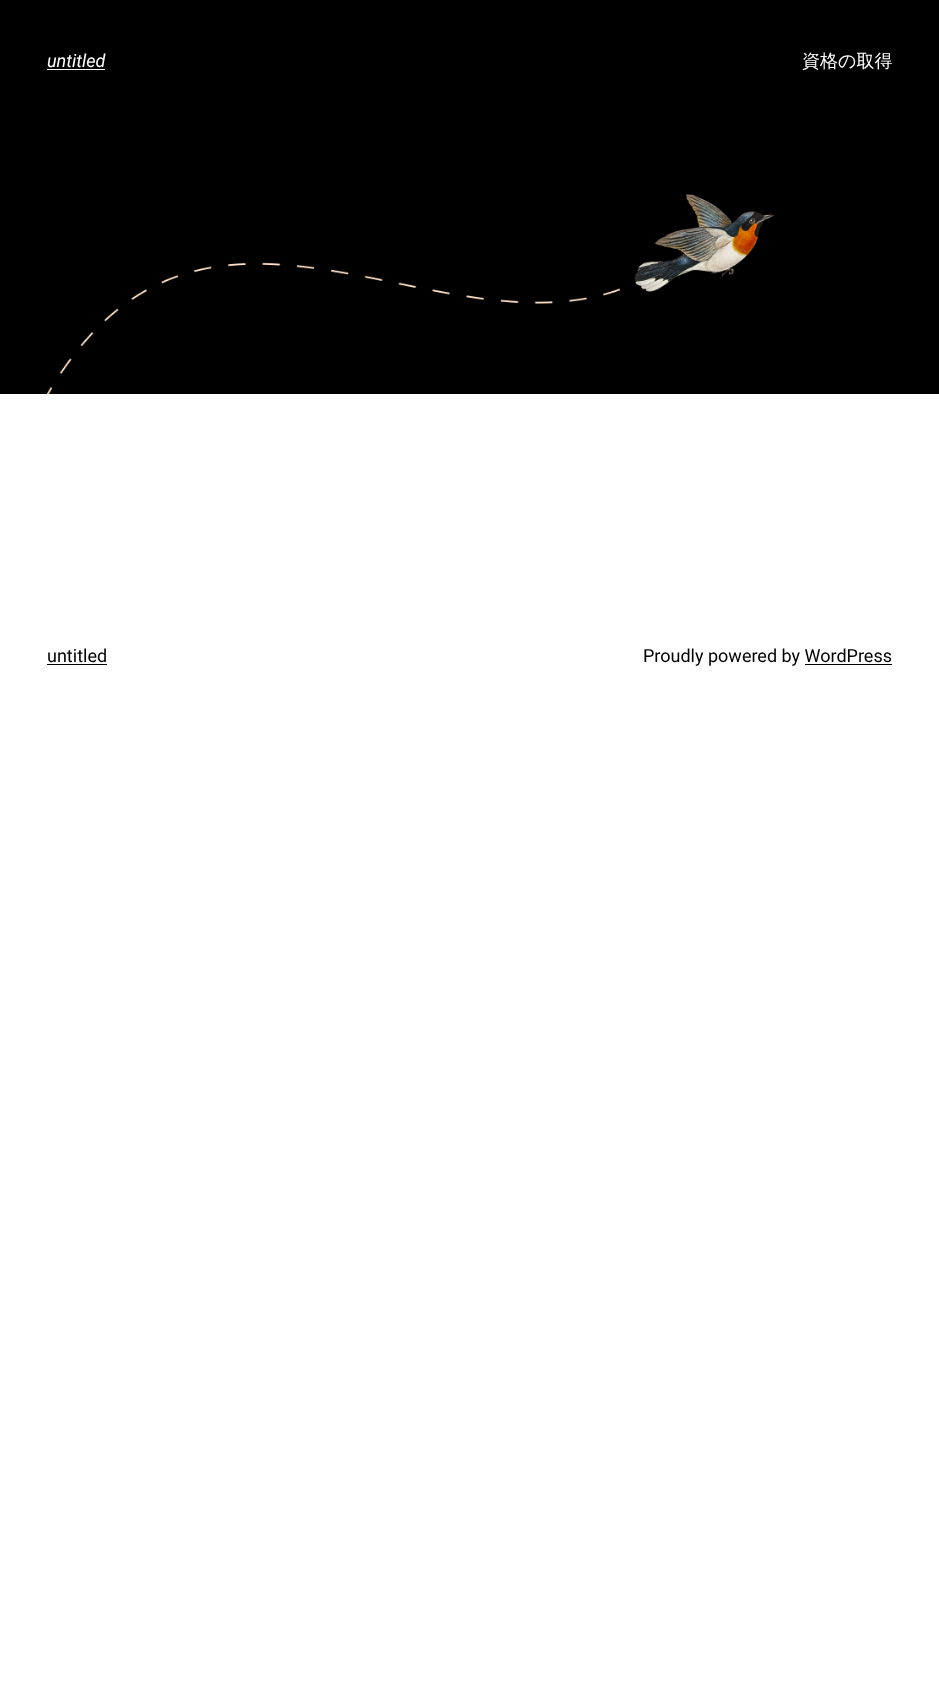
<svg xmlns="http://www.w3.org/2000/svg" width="939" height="1696">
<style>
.a{font:italic 18px Roboto;fill:#fff}
.b{font:500 18px WenQuanYi Zen Hei;fill:#fff}
.c{font:18px Roboto;fill:#000}
</style>
<rect width="100%" height="100%" fill="#fff"/>
<path fill="#000" d="M0 0h939v394H0z"/>
<path fill="#fff" d="M47 69h58v1H47z"/>
<image href="1.png" x="47" y="194" width="728" height="200"/>
<path fill="#000" d="M47 664h60v1H47z"/>
<path fill="#000" d="M805 664h87v1H805z"/>
<text class="a" x="47" y="67">untitled</text>
<text class="b" x="802" y="67">資格の取得</text>
<text class="c" x="47" y="662">untitled</text>
<text class="c" x="643" y="662">Proudly powered by WordPress</text>
</svg>
